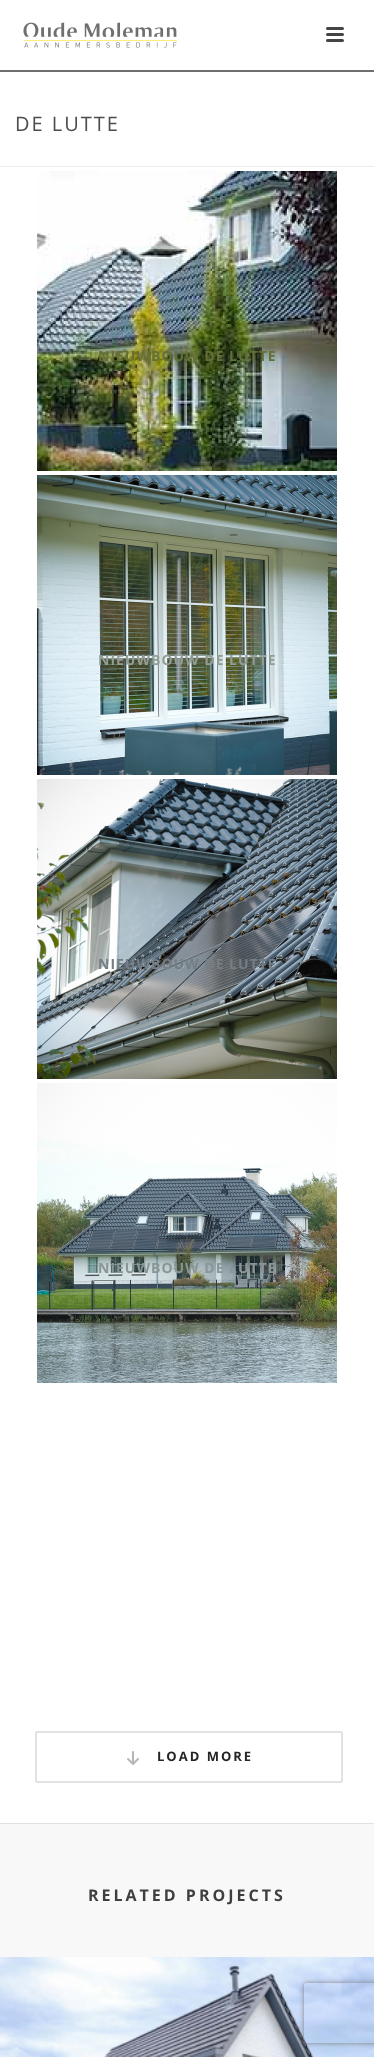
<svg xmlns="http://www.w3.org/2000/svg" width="374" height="2057">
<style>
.a{font:20px Open Sans;letter-spacing:2px;fill:#4d4d4d}
.b{font:bold 14px Open Sans;letter-spacing:1px;fill:#647038}
.c{font:bold 14px Open Sans;letter-spacing:1px;fill:#929d94}
.d{font:bold 14px Open Sans;letter-spacing:1px;fill:#757e85}
.e{font:bold 14px Open Sans;letter-spacing:1px;fill:#889697}
.f{font:bold 13px Open Sans;letter-spacing:2px;fill:#252525}
.g{font:bold 16px Open Sans;letter-spacing:3px;fill:#3f3f3f}
</style>
<defs>
<clipPath id="clip1"><path d="M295 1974h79v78h-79zm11 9h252c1 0 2 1 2 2v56c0 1-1 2-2 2h-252c-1 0-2-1-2-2v-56c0-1 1-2 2-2z" clip-rule="evenodd"/></clipPath>
</defs>
<rect width="100%" height="100%" fill="#fff"/>
<path fill="#ededed" d="M0 166h374v1H0z"/>
<path fill="#6f6f6e" d="M0 70h374v2H0z"/>
<image href="1.png" x="23" y="22" width="154" height="26"/>
<rect fill="#444" x="326" y="27" width="18" height="3" rx="1.5"/>
<rect fill="#444" x="326" y="33" width="18" height="3" rx="1.5"/>
<rect fill="#444" x="326" y="39" width="18" height="3" rx="1.5"/>
<image href="2.png" x="37" y="171" width="300" height="300"/>
<image href="3.png" x="37" y="475" width="300" height="300"/>
<image href="4.png" x="37" y="779" width="300" height="300"/>
<image href="5.png" x="37" y="1083" width="300" height="300"/>
<rect fill="none" stroke="#e2e2e2" stroke-width="2" x="36" y="1732" width="306" height="50" rx="1"/>
<image href="6.png" x="127" y="1751" width="12" height="14"/>
<path fill="#f8f8f8" d="M0 1824h374v133H0z"/>
<path fill="#dfe2e5" d="M0 1823h374v1H0z"/>
<image href="7.png" x="0" y="1957" width="374" height="100"/>
<g clip-path="url(#clip1)">
<rect fill="#808080" filter="blur(2.5px)" x="304" y="1983" width="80" height="60" rx="2"/>
</g>
<text class="a" x="15" y="131">DE LUTTE</text>
<text class="b" x="98" y="361">NIEUWBOUW DE LUTTE</text>
<text class="c" x="98" y="665">NIEUWBOUW DE LUTTE</text>
<text class="d" x="98" y="969">NIEUWBOUW DE LUTTE</text>
<text class="e" x="98" y="1273">NIEUWBOUW DE LUTTE</text>
<text class="f" x="157" y="1761">LOAD MORE</text>
<text class="g" x="88" y="1901">RELATED PROJECTS</text>
</svg>
